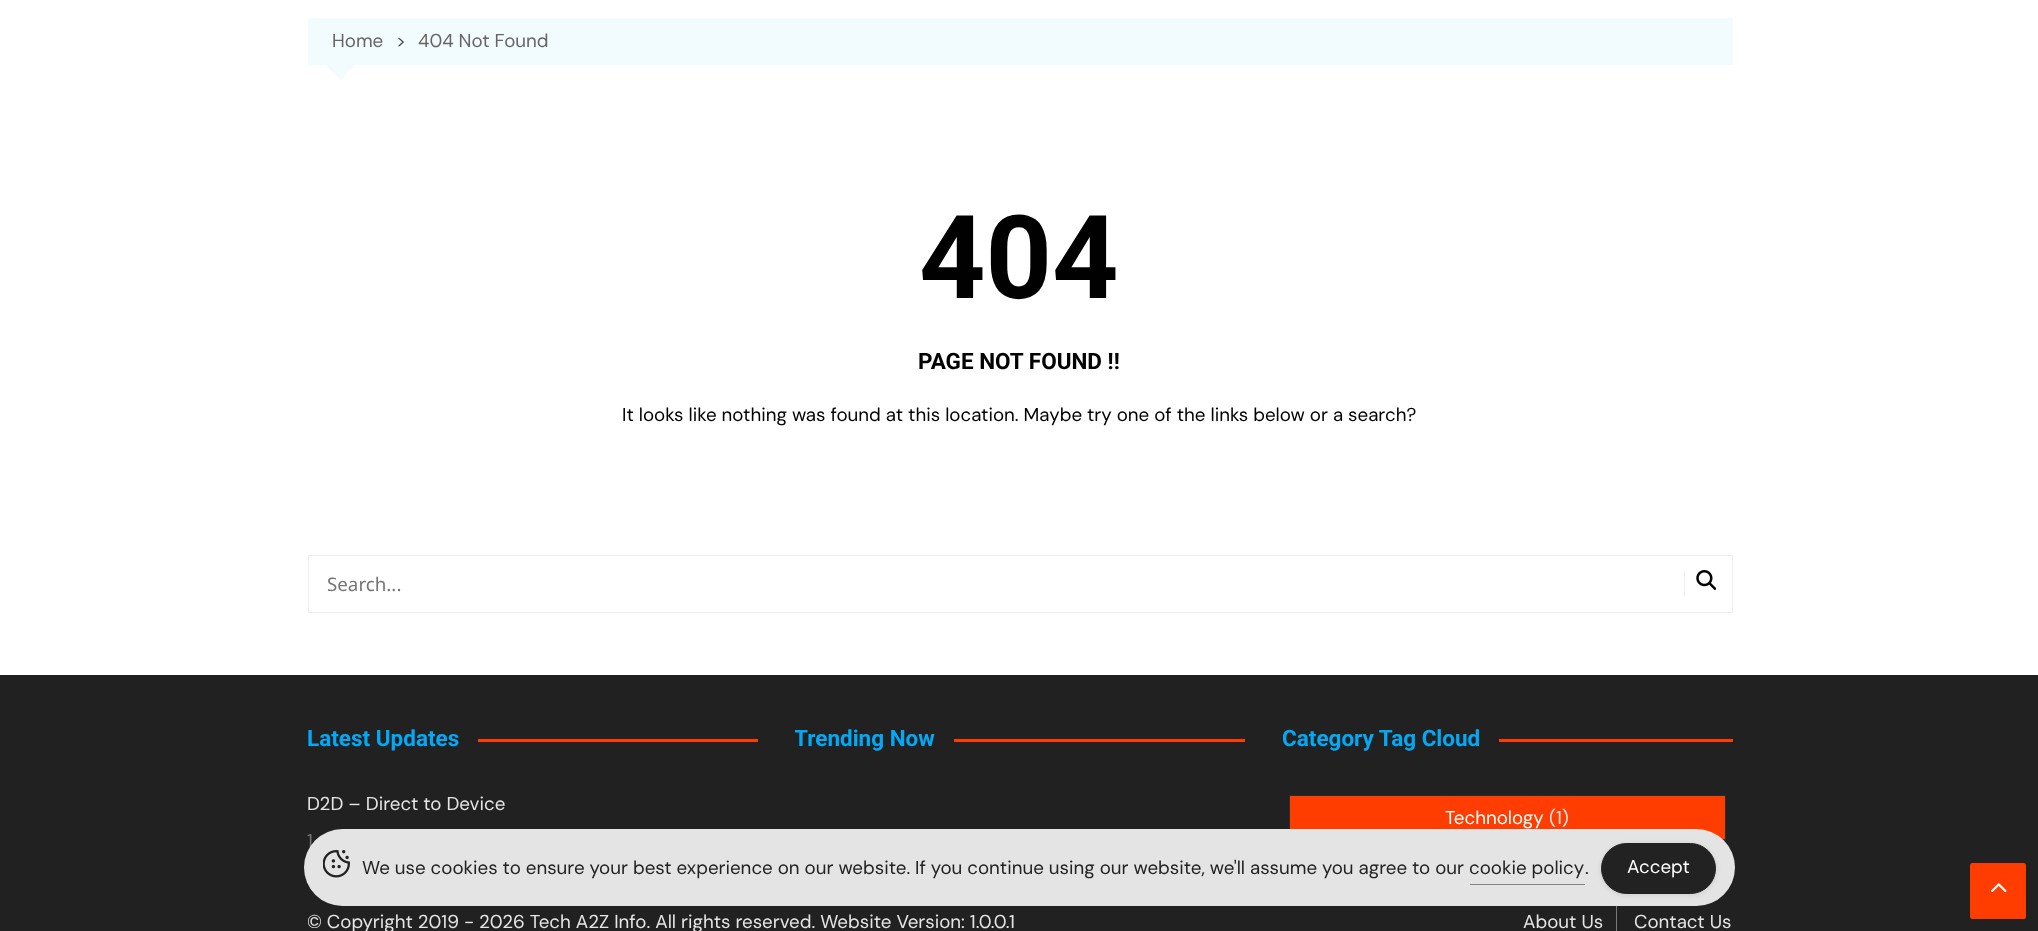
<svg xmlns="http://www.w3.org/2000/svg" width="2038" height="931">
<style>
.a{font:18.75px DM Sans;fill:#666}
.b{font:18px DM Sans;fill:#494b4c}
.c{font:bold 116px Roboto;fill:#010101}
.d{font:bold 22.5px Roboto;fill:#010101}
.e{font:18.75px DM Sans;fill:#010101}
.f{font:18.75px Noto Sans;fill:#757575}
.g{font:bold 22.5px Roboto;fill:#03a9f4}
.h{font:18.75px DM Sans;fill:#e5e5e5}
.i{font:18.75px DM Sans;fill:#757575}
.j{font:18.75px DM Sans;fill:#fff}
.k{font:18.75px DM Sans;fill:#222}
</style>
<defs>
<clipPath id="clip1"><path d="M795 725h450v26H795z"/></clipPath>
<clipPath id="clip2"><path d="M1283 725h450v26H1283z"/></clipPath>
</defs>
<rect width="100%" height="100%" fill="#fff"/>
<path fill="#f2fbfe" d="M308 18h1425v47H308z"/>
<path fill="#f2fbfe" d="M325.5 64.5h30l-15 16z"/>
<path fill="none" stroke="#eee" d="M308.5 555.5h1424v57H308.5z"/>
<path fill="#eee" d="M1684 571h1v25H1684z"/>
<image href="1.png" x="1696" y="570" width="20" height="20"/>
<path fill="#212121" d="M0 675h2038v256H0z"/>
<path fill="#ff3d00" d="M478 739h280v3H478z"/>
<path fill="#ff3d00" d="M954 739h291v3H954z"/>
<path fill="#ff3d00" d="M1499 739h234v3H1499z"/>
<path fill="#ff3d00" stroke="#2b2b2b" d="M1289.5 795.5h436v44H1289.5z"/>
<path fill="#777" d="M1616 906h1v25H1616z"/>
<rect fill="#ff3d00" x="1970" y="863" width="56" height="56" rx="2.5"/>
<image href="3.png" x="1991" y="883" width="16" height="9"/>
<text class="a" x="332" y="47">Home</text>
<text class="b" x="396" y="47">&gt;</text>
<text class="a" x="418" y="47">404 Not Found</text>
<text class="c" x="919" y="298">404</text>
<text class="d" x="918" y="369">PAGE NOT FOUND !!</text>
<text class="e" x="622" y="421">It looks like nothing was found at this location. Maybe try one of the links below or a search?</text>
<text class="f" x="327" y="591">Search...</text>
<text class="g" x="307" y="746">Latest Updates</text>
<text class="h" x="307" y="810">D2D – Direct to Device</text>
<text class="i" x="307" y="847">1</text>
<g clip-path="url(#clip1)">
<text class="g" x="794" y="746">Trending Now</text>
</g>
<g clip-path="url(#clip2)">
<text class="g" x="1282" y="746">Category Tag Cloud</text>
</g>
<text class="j" x="1445" y="824">Technology</text>
<text class="h" x="1549" y="824">(1)</text>
<text class="h" x="307" y="928">© Copyright 2019 - 2026 Tech A2Z Info. All rights reserved. Website Version: 1.0.0.1</text>
<text class="h" x="1523" y="928">About Us</text>
<text class="h" x="1634" y="928">Contact Us</text>
<rect fill="#e4e4e4" x="304" y="829" width="1431" height="77" rx="38.5"/>
<image href="2.png" x="323" y="850" width="27" height="28"/>
<text class="k" x="362" y="874">We use cookies to ensure your best experience on our website. If you continue using our website, we'll assume you agree to our cookie policy</text>
<text class="k" x="1585" y="874">.</text>
<path fill="#838383" d="M1470 884h115v1H1470z"/>
<rect fill="#0000001a" filter="blur(2.5px)" x="1601" y="844" width="115" height="51" rx="25.5"/>
<rect fill="#222" stroke="#222" x="1601.5" y="843.5" width="114" height="50" rx="25"/>
<text class="j" x="1627" y="873">Accept</text>
</svg>
